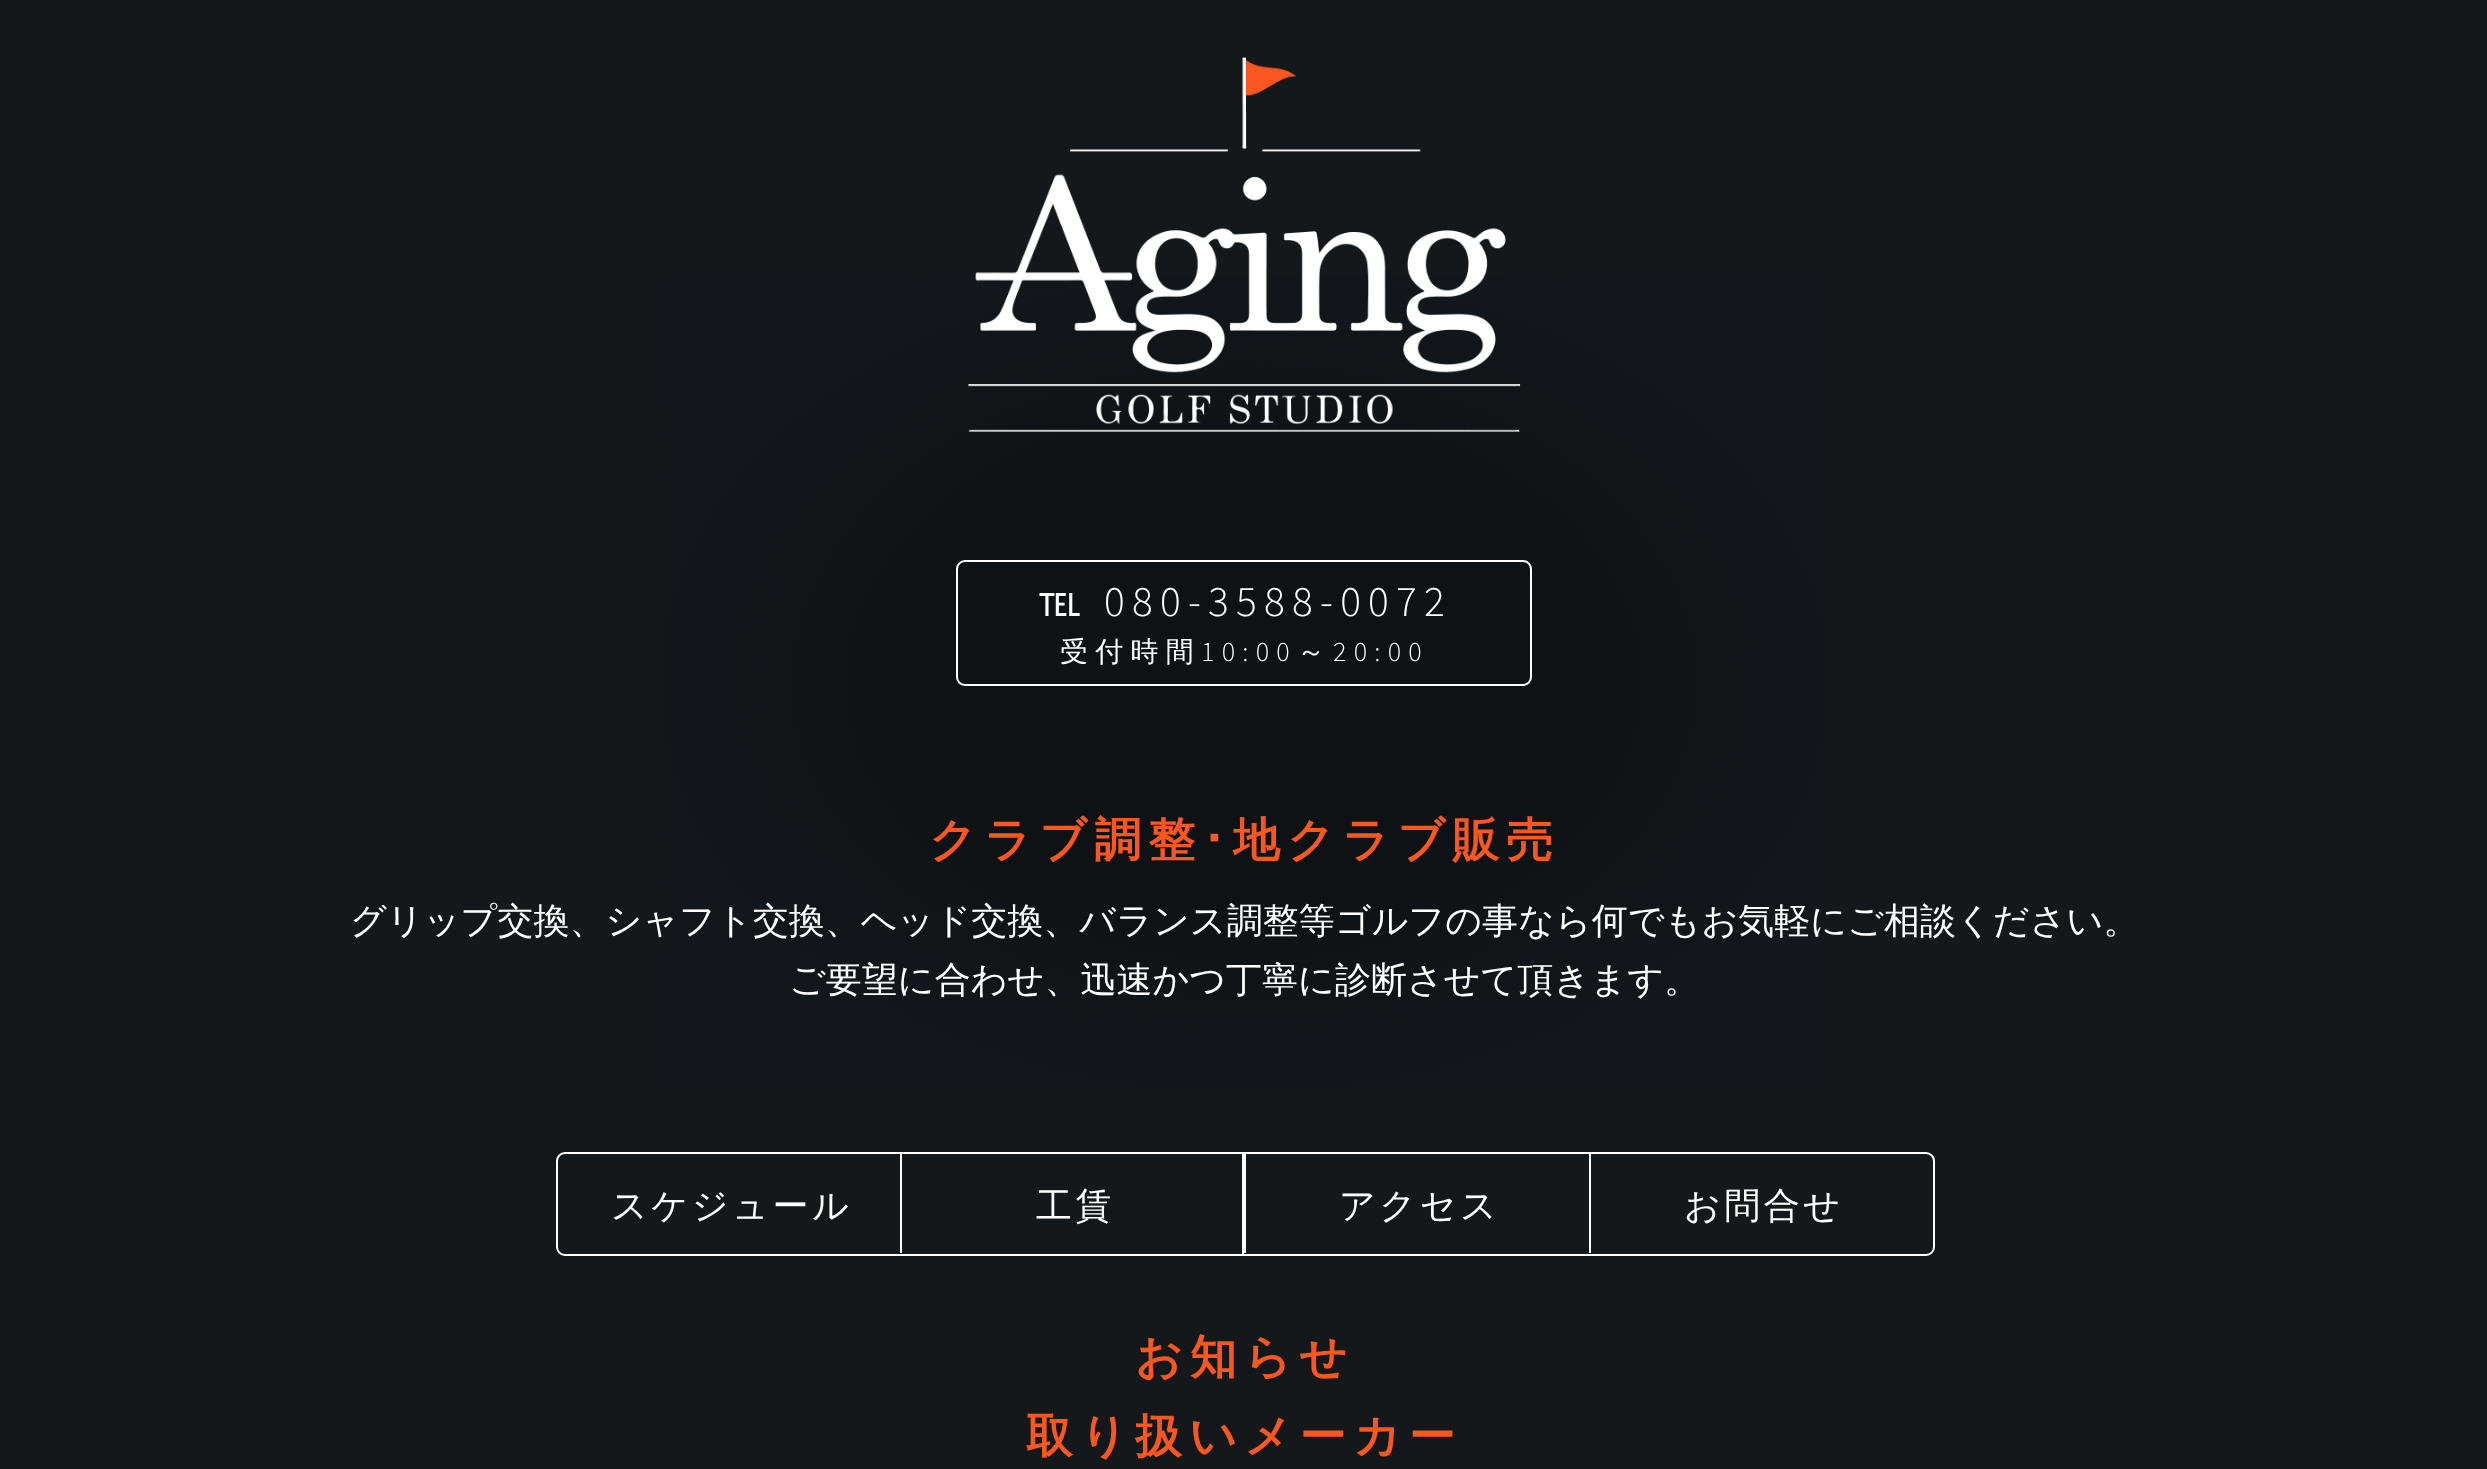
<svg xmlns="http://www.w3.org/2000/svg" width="2487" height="1469">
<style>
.a{font:500 43.25px WenQuanYi Zen Hei;letter-spacing:7.25px;fill:#fff}
.b{font:300 43.25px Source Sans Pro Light;letter-spacing:7.25px;fill:#fff}
.c{font:500 28px WenQuanYi Zen Hei;letter-spacing:7.25px;fill:#fff}
.d{font:300 28px Source Sans Pro Light;letter-spacing:7.25px;fill:#fff}
.e{font:bold 46.75px WenQuanYi Zen Hei;letter-spacing:7.25px;fill:#f85720}
.f{font:bold 46.75px IPAPGothic;letter-spacing:7.25px;fill:#f85720}
.g{font:500 36px WenQuanYi Zen Hei;fill:#fff}
.h{font:500 36px WenQuanYi Zen Hei;letter-spacing:3.5px;fill:#fff}
</style>
<defs>
<radialGradient id="g1" gradientUnits="userSpaceOnUse" cx="0" cy="0" r="1" gradientTransform="matrix(1266 0 0 888 1244 682)"><stop offset="0.25" stop-color="#0f1215"/><stop offset="0.55" stop-color="#14181c"/></radialGradient>
</defs>
<rect width="100%" height="100%" fill="#15181b"/>
<path fill="url(#g1)" d="M664 275h1160v814H664z"/>
<image href="1.png" x="968" y="57" width="553" height="375"/>
<rect fill="none" stroke="#fff" stroke-width="2" x="957" y="561" width="574" height="124" rx="8"/>
<rect fill="none" stroke="#fff" stroke-width="2" x="557" y="1153" width="1377" height="102" rx="8"/>
<path fill="#fff" d="M1242 1152h2v104H1242z"/>
<path fill="#fff" d="M900 1154h2v99H900z"/>
<path fill="#fff" d="M1244 1154h2v99H1244z"/>
<path fill="#fff" d="M1589 1154h2v99H1589z"/>
<text class="a" x="1038" y="616">℡</text>
<text class="b" x="1104" y="616">080-3588-0072</text>
<text class="c" x="1060" y="661">受付時間</text>
<text class="d" x="1201" y="661">10:00</text>
<text class="c" x="1297" y="661">～</text>
<text class="d" x="1333" y="661">20:00</text>
<text class="e" x="929" y="856">クラブ調整</text>
<text class="f" x="1202" y="856">･</text>
<text class="e" x="1233" y="856">地クラブ販売</text>
<text class="g" x="350" y="933">グリップ交換、シャフト交換、ヘッド交換、バランス調整等ゴルフの事なら何でもお気軽にご相談ください。</text>
<text class="g" x="789" y="992">ご要望に合わせ、迅速かつ丁寧に診断させて頂きます。</text>
<text class="h" x="611" y="1218">スケジュール</text>
<text class="h" x="1036" y="1218">工賃</text>
<text class="h" x="1339" y="1218">アクセス</text>
<text class="h" x="1684" y="1218">お問合せ</text>
<text class="e" x="1135" y="1373">お知らせ</text>
<text class="e" x="1026" y="1452">取り扱いメーカー</text>
</svg>
